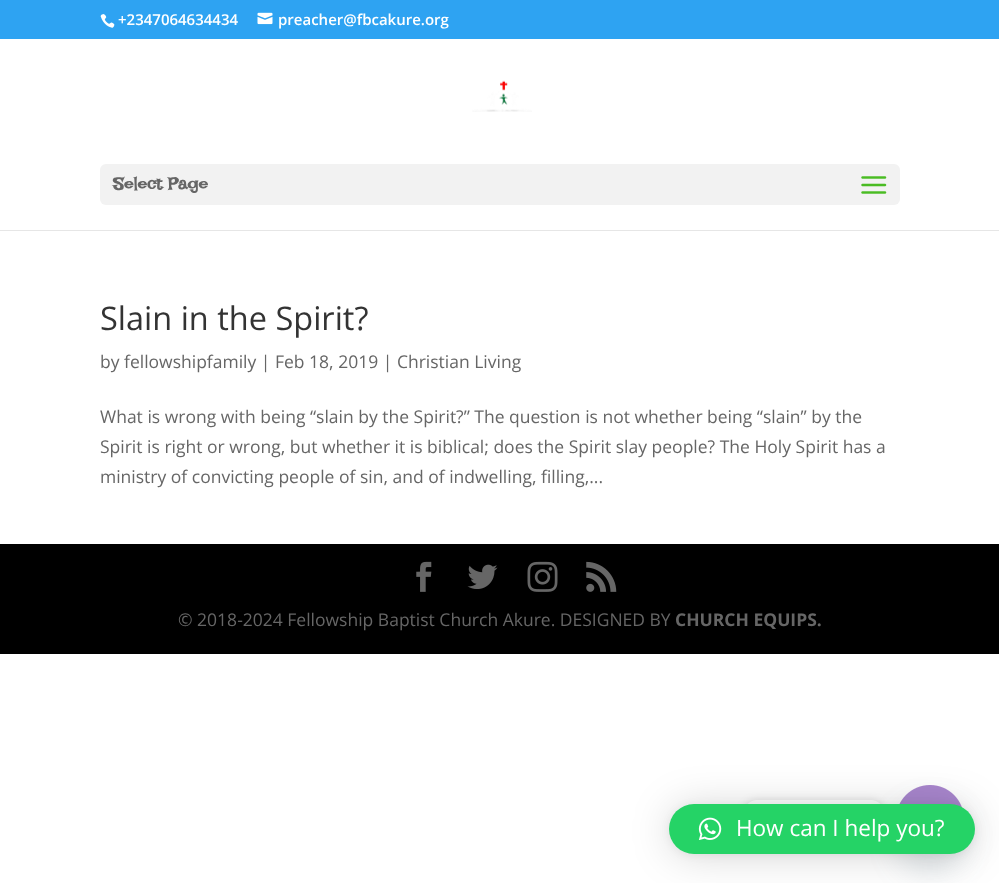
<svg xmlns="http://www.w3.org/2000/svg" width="999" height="883">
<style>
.a{font:600 15px Open Sans;fill:#fff}
.b{font:bold 17.5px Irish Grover;fill:#666}
.c{font:32.5px Open Sans;fill:#333}
.d{font:17.5px Open Sans;fill:#666}
.e{font:bold 17.5px Open Sans;fill:#666}
.f{font:22.5px Open Sans;fill:#fff}
</style>
<rect width="100%" height="100%" fill="#fff"/>
<path fill="#2ea3f2" d="M0 0h999v39H0z"/>
<image href="1.png" x="100" y="14" width="15" height="14"/>
<image href="2.png" x="257" y="12" width="16" height="13"/>
<path fill="#e6e6e6" d="M0 230h999v1H0z"/>
<image href="3.png" x="472" y="80" width="60" height="32"/>
<rect fill="#f2f2f2" x="100" y="164" width="800" height="41" rx="6"/>
<image href="4.png" x="861" y="176" width="26" height="18"/>
<path fill="#000" d="M0 544h999v110H0z"/>
<image href="5.png" x="416" y="561" width="16" height="31"/>
<image href="6.png" x="467" y="564" width="31" height="25"/>
<image href="7.png" x="527" y="561" width="31" height="31"/>
<image href="8.png" x="586" y="561" width="31" height="31"/>
<rect fill="#00000026" filter="blur(5px)" x="744" y="801" width="140" height="39" rx="13"/>
<rect fill="#fff" x="744" y="800" width="140" height="39" rx="13"/>
<rect fill="#49687e29" filter="blur(15px)" x="896" y="805" width="68" height="68" rx="34"/>
<image href="9.png" x="899" y="785" width="64" height="23"/>
<rect fill="#00000029" filter="blur(20px)" x="669" y="806" width="306" height="50" rx="25"/>
<rect fill="#0000000f" filter="blur(4px)" x="669" y="805" width="306" height="50" rx="25"/>
<rect fill="#25d366" x="669" y="804" width="306" height="50" rx="25"/>
<image href="10.png" x="698" y="817" width="24" height="23"/>
<text class="a" x="118" y="25">+2347064634434</text>
<text class="a" x="278" y="25">preacher@fbcakure.org</text>
<text class="b" x="113" y="190">Select Page</text>
<text class="c" x="100" y="330">Slain in the Spirit?</text>
<text class="d" x="100" y="368">by fellowshipfamily | Feb 18, 2019 | Christian Living</text>
<text class="d" x="100" y="423">What is wrong with being “slain by the Spirit?” The question is not whether being “slain” by the</text>
<text class="d" x="100" y="453">Spirit is right or wrong, but whether it is biblical; does the Spirit slay people? The Holy Spirit has a</text>
<text class="d" x="100" y="483">ministry of convicting people of sin, and of indwelling, filling,...</text>
<text class="d" x="178" y="626">© 2018-2024 Fellowship Baptist Church Akure. DESIGNED BY</text>
<text class="e" x="675" y="626">CHURCH EQUIPS.</text>
<text class="f" x="736" y="836">How can I help you?</text>
</svg>
